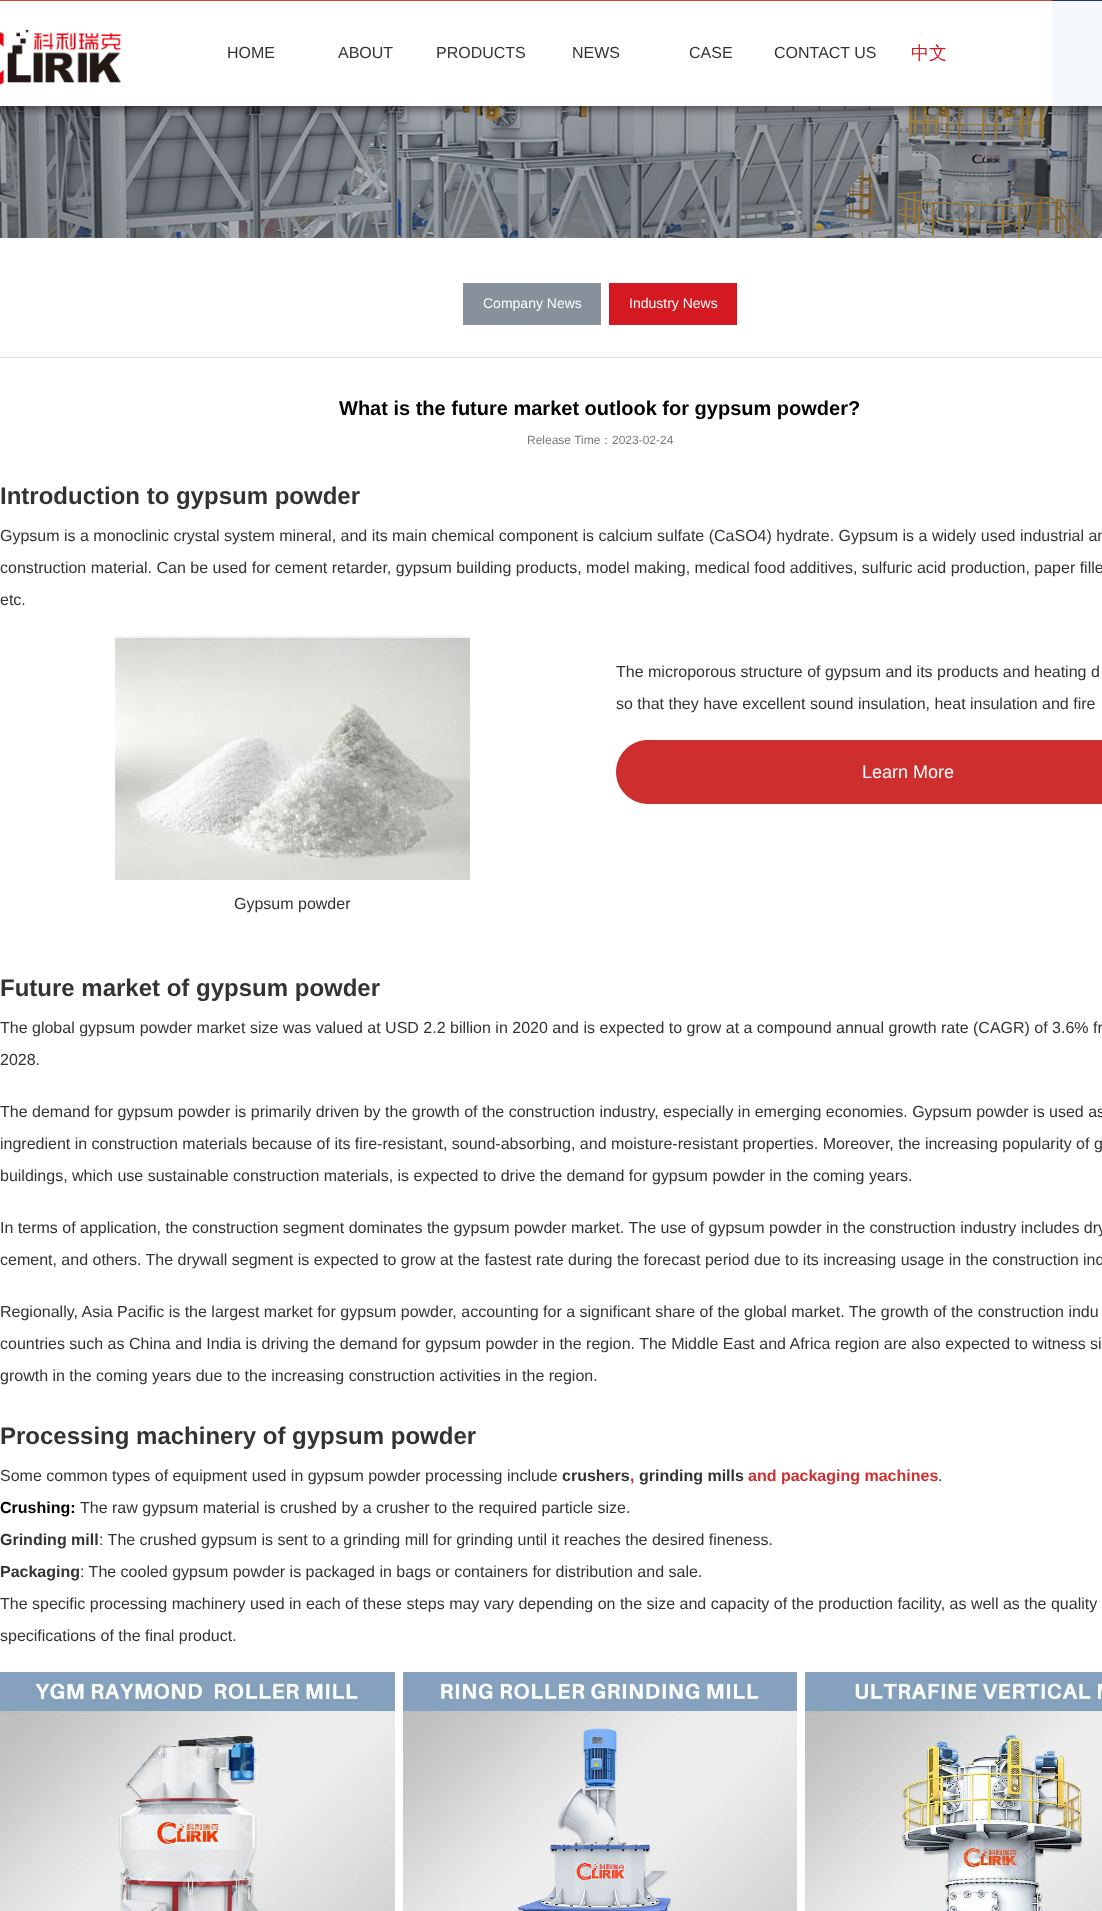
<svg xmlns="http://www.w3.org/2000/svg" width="1102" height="1911">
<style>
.a{font:16px Liberation Sans;fill:#333}
.b{font:500 18px WenQuanYi Zen Hei;fill:#d41920}
.c{font:14px Liberation Sans;fill:#fff}
.d{font:bold 20px Liberation Sans;fill:#000}
.e{font:12px Liberation Sans;fill:#797979}
.f{font:500 12px WenQuanYi Zen Hei;fill:#797979}
.g{font:bold 24px Liberation Sans;fill:#333}
.h{font:18px Liberation Sans;fill:#fff}
.i{font:bold 16px Liberation Sans;fill:#333}
.j{font:bold 16px Liberation Sans;fill:#cf2e2e}
.k{font:bold 16px Liberation Sans;fill:#000}
</style>
<defs>
<clipPath id="clip1"><path d="M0 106h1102v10H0z"/></clipPath>
</defs>
<rect width="100%" height="100%" fill="#fff"/>
<image href="3.png" x="0" y="106" width="1102" height="132"/>
<g clip-path="url(#clip1)">
<path fill="#00000080" filter="blur(4px)" d="M-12 1h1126v108H-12z"/>
</g>
<image href="1.png" x="0" y="0" width="1102" height="106"/>
<image href="2.png" x="0" y="29" width="122" height="57"/>
<path fill="#ddd" d="M0 357h1102v1H0z"/>
<path fill="#87909b" d="M463 283h138v42H463z"/>
<path fill="#d41920" d="M609 283h128v42H609z"/>
<path fill="#cf2e2e" d="M648 740h454v64h-454c-17.5 0-32-14.5-32-32c0-17.5 14.5-32 32-32z"/>
<image href="4.png" x="115" y="636" width="355" height="244"/>
<image href="5.png" x="0" y="1672" width="395" height="239"/>
<image href="6.png" x="403" y="1672" width="394" height="239"/>
<image href="7.png" x="805" y="1672" width="297" height="239"/>
<text class="a" x="227" y="58">HOME</text>
<text class="a" x="338" y="58">ABOUT</text>
<text class="a" x="436" y="58">PRODUCTS</text>
<text class="a" x="572" y="58">NEWS</text>
<text class="a" x="689" y="58">CASE</text>
<text class="a" x="774" y="58">CONTACT US</text>
<text class="b" x="911" y="59">中文</text>
<text class="c" x="483" y="308">Company News</text>
<text class="c" x="629" y="308">Industry News</text>
<text class="d" x="339" y="415">What is the future market outlook for gypsum powder?</text>
<text class="e" x="527" y="444">Release Time</text>
<text class="f" x="600" y="444">：</text>
<text class="e" x="612" y="444">2023-02-24</text>
<text class="g" x="0" y="504">Introduction to gypsum powder</text>
<text class="a" x="0" y="541">Gypsum is a monoclinic crystal system mineral, and its main chemical component is calcium sulfate (CaSO4) hydrate. Gypsum is a widely used industrial an</text>
<text class="a" x="0" y="573">construction material. Can be used for cement retarder, gypsum building products, model making, medical food additives, sulfuric acid production, paper fille</text>
<text class="a" x="0" y="605">etc.</text>
<text class="a" x="616" y="677">The microporous structure of gypsum and its products and heating d</text>
<text class="a" x="616" y="709">so that they have excellent sound insulation, heat insulation and fire</text>
<text class="h" x="862" y="778">Learn More</text>
<text class="a" x="234" y="909">Gypsum powder</text>
<text class="g" x="0" y="996">Future market of gypsum powder</text>
<text class="a" x="0" y="1033">The global gypsum powder market size was valued at USD 2.2 billion in 2020 and is expected to grow at a compound annual growth rate (CAGR) of 3.6% fr</text>
<text class="a" x="0" y="1065">2028.</text>
<text class="a" x="0" y="1117">The demand for gypsum powder is primarily driven by the growth of the construction industry, especially in emerging economies. Gypsum powder is used as</text>
<text class="a" x="0" y="1149">ingredient in construction materials because of its fire-resistant, sound-absorbing, and moisture-resistant properties. Moreover, the increasing popularity of g</text>
<text class="a" x="0" y="1181">buildings, which use sustainable construction materials, is expected to drive the demand for gypsum powder in the coming years.</text>
<text class="a" x="0" y="1233">In terms of application, the construction segment dominates the gypsum powder market. The use of gypsum powder in the construction industry includes dry</text>
<text class="a" x="0" y="1265">cement, and others. The drywall segment is expected to grow at the fastest rate during the forecast period due to its increasing usage in the construction ind</text>
<text class="a" x="0" y="1317">Regionally, Asia Pacific is the largest market for gypsum powder, accounting for a significant share of the global market. The growth of the construction indu</text>
<text class="a" x="0" y="1349">countries such as China and India is driving the demand for gypsum powder in the region. The Middle East and Africa region are also expected to witness si</text>
<text class="a" x="0" y="1381">growth in the coming years due to the increasing construction activities in the region.</text>
<text class="g" x="0" y="1444">Processing machinery of gypsum powder</text>
<text class="a" x="0" y="1481">Some common types of equipment used in gypsum powder processing include</text>
<text class="i" x="562" y="1481">crushers</text>
<text class="j" x="630" y="1481">,</text>
<text class="i" x="639" y="1481">grinding mills</text>
<text class="j" x="748" y="1481">and packaging machines</text>
<text class="a" x="938" y="1481">.</text>
<text class="k" x="0" y="1513">Crushing:</text>
<text class="a" x="80" y="1513">The raw gypsum material is crushed by a crusher to the required particle size.</text>
<text class="i" x="0" y="1545">Grinding mill</text>
<text class="a" x="99" y="1545">: The crushed gypsum is sent to a grinding mill for grinding until it reaches the desired fineness.</text>
<text class="i" x="0" y="1577">Packaging</text>
<text class="a" x="80" y="1577">: The cooled gypsum powder is packaged in bags or containers for distribution and sale.</text>
<text class="a" x="0" y="1609">The specific processing machinery used in each of these steps may vary depending on the size and capacity of the production facility, as well as the quality</text>
<text class="a" x="0" y="1641">specifications of the final product.</text>
</svg>
